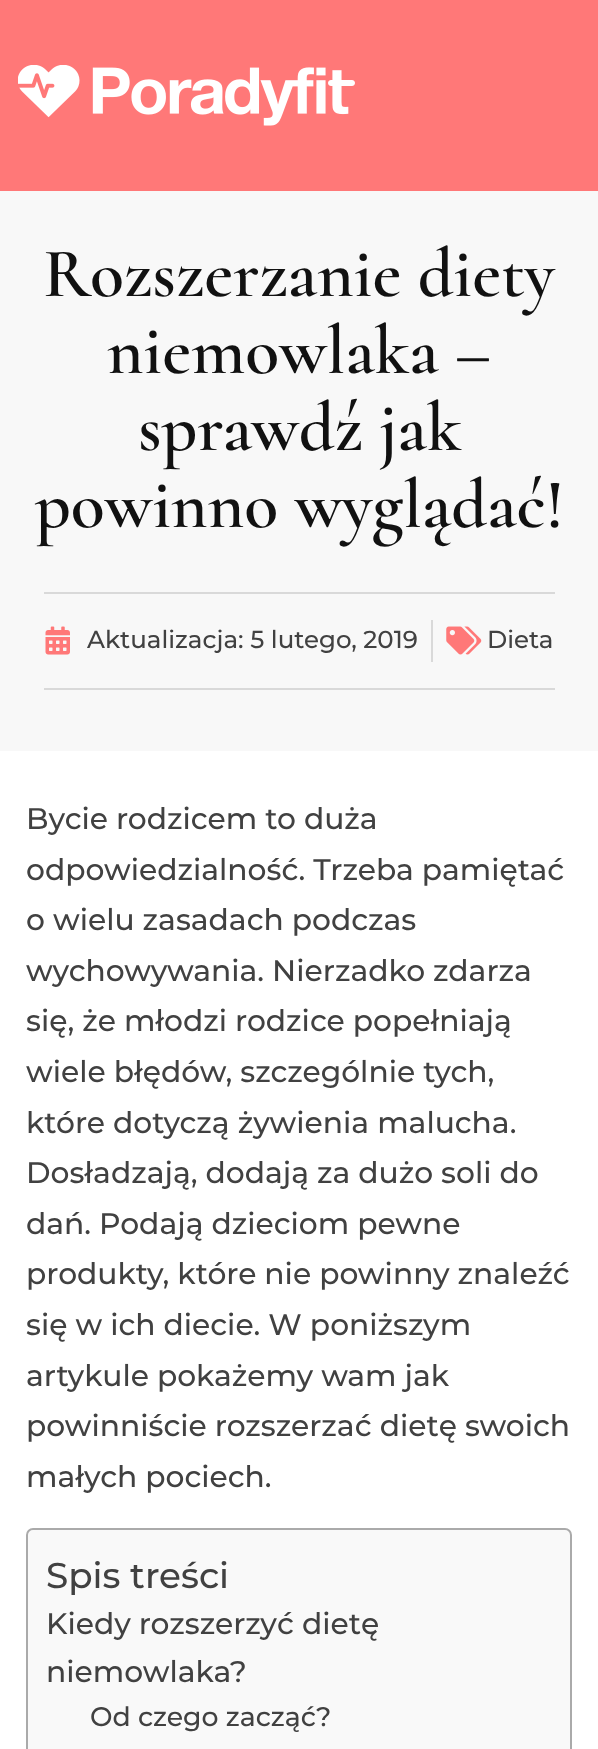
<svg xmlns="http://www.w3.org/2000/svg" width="598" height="1749">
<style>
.a{font:600 70px Cormorant;fill:#111}
.b{font:500 24.5px Montserrat;fill:#414141}
.c{font:500 29.75px Montserrat;fill:#414141}
.d{font:500 35.75px Montserrat;fill:#414141}
.e{font:500 26.75px Montserrat;fill:#414141}
</style>
<rect width="100%" height="100%" fill="#fff"/>
<path fill="#ff7878" d="M0 0h598v191H0z"/>
<image href="1.png" x="18" y="65" width="337" height="61"/>
<path fill="#f8f8f8" d="M0 191h598v560H0z"/>
<path fill="#d9d9d9" d="M44 592h511v2H44z"/>
<path fill="#d9d9d9" d="M44 688h511v2H44z"/>
<image href="2.png" x="45" y="626" width="25" height="29"/>
<path fill="#d9d9d9" d="M431 620h2v42H431z"/>
<image href="3.png" x="446" y="626" width="36" height="29"/>
<rect fill="#f9f9f9" stroke="#aaa" stroke-width="2" x="27" y="1529" width="544" height="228" rx="6"/>
<text class="a" x="43" y="296">Rozszerzanie diety</text>
<text class="a" x="107" y="373">niemowlaka –</text>
<text class="a" x="138" y="450">sprawdź jak</text>
<text class="a" x="35" y="527">powinno wyglądać!</text>
<text class="b" x="87" y="648">Aktualizacja: 5 lutego, 2019</text>
<text class="b" x="487" y="648">Dieta</text>
<text class="c" x="26" y="829">Bycie rodzicem to duża</text>
<text class="c" x="26" y="880">odpowiedzialność. Trzeba pamiętać</text>
<text class="c" x="26" y="930">o wielu zasadach podczas</text>
<text class="c" x="26" y="981">wychowywania. Nierzadko zdarza</text>
<text class="c" x="26" y="1031">się, że młodzi rodzice popełniają</text>
<text class="c" x="26" y="1082">wiele błędów, szczególnie tych,</text>
<text class="c" x="26" y="1133">które dotyczą żywienia malucha.</text>
<text class="c" x="26" y="1183">Dosładzają, dodają za dużo soli do</text>
<text class="c" x="26" y="1234">dań. Podają dzieciom pewne</text>
<text class="c" x="26" y="1284">produkty, które nie powinny znaleźć</text>
<text class="c" x="26" y="1335">się w ich diecie. W poniższym</text>
<text class="c" x="26" y="1386">artykule pokażemy wam jak</text>
<text class="c" x="26" y="1436">powinniście rozszerzać dietę swoich</text>
<text class="c" x="26" y="1487">małych pociech.</text>
<text class="d" x="46" y="1588">Spis treści</text>
<text class="c" x="46" y="1634">Kiedy rozszerzyć dietę</text>
<text class="c" x="46" y="1682">niemowlaka?</text>
<text class="e" x="90" y="1726">Od czego zacząć?</text>
</svg>
